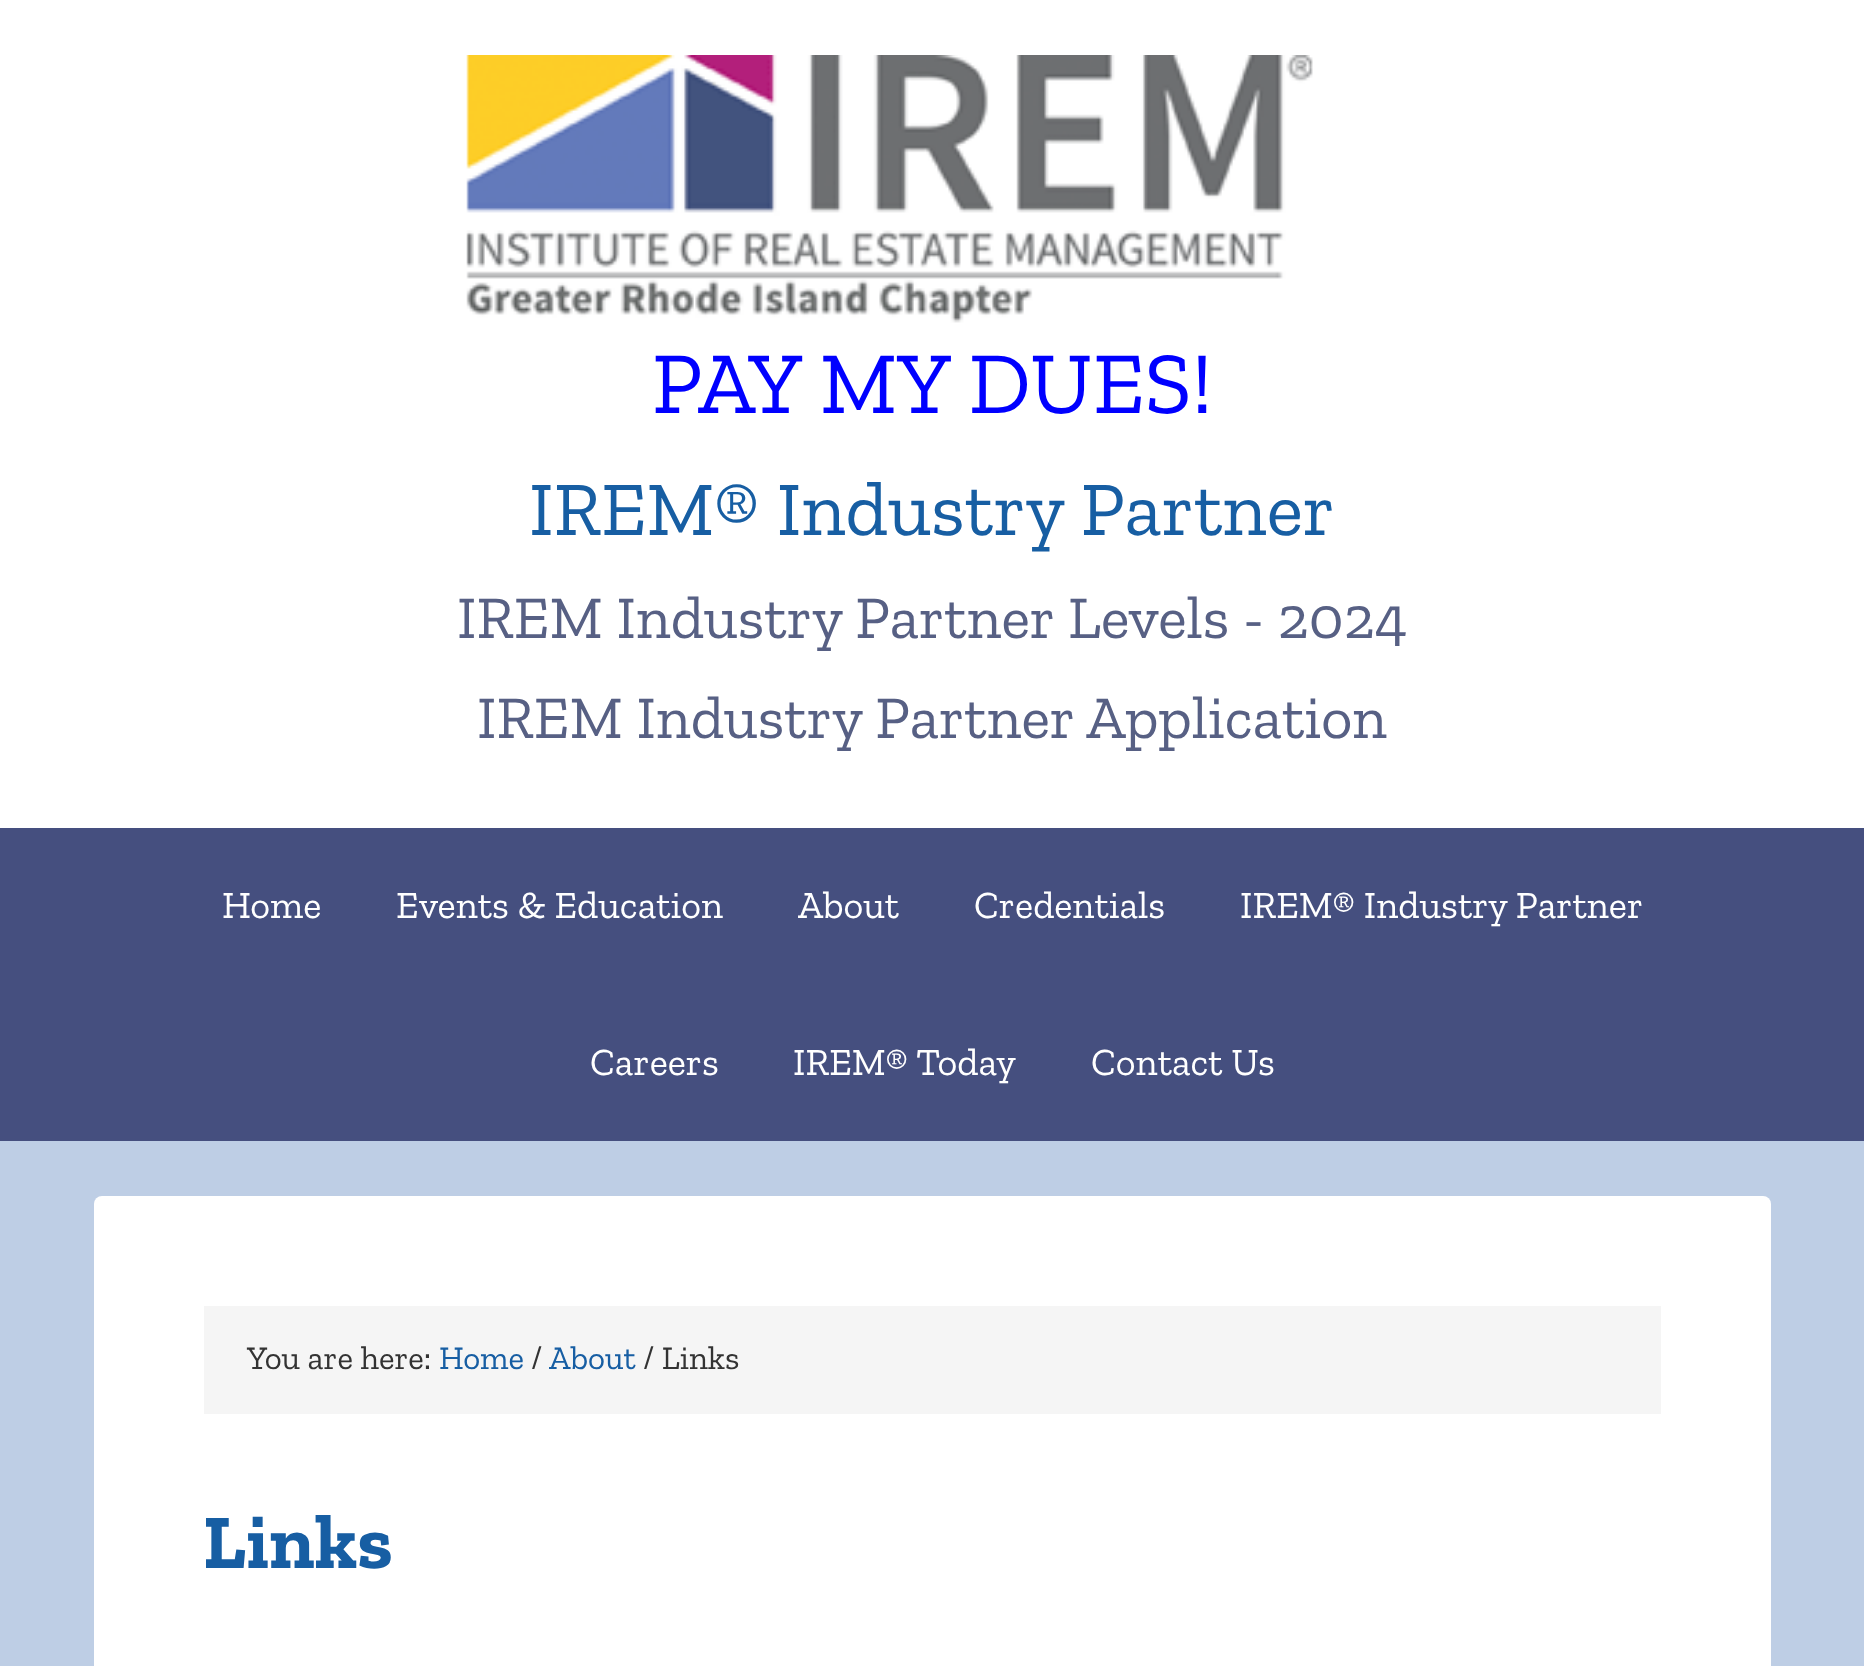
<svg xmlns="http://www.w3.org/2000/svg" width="1864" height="1666">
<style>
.a{font:88px Zilla Slab;fill:#00f}
.b{font:77px Zilla Slab;fill:#175ea3}
.c{font:60.5px Zilla Slab;fill:#576084}
.d{font:38.5px Zilla Slab;fill:#fff}
.e{font:33px Zilla Slab;fill:#333}
.f{font:33px Zilla Slab;fill:#175ea3}
.g{font:bold 77px Zilla Slab;fill:#175ea3}
</style>
<rect width="100%" height="100%" fill="#becee5"/>
<path fill="#fff" d="M0 0h1864v828H0z"/>
<image href="1.png" x="466" y="55" width="847" height="268"/>
<path fill="#454f7f" d="M0 828h1864v313H0z"/>
<rect fill="#fff" x="94" y="1196" width="1677" height="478" rx="8"/>
<path fill="#f5f5f5" d="M204 1306h1457v108H204z"/>
<text class="a" x="652" y="413">PAY MY DUES!</text>
<text class="b" x="529" y="535">IREM® Industry Partner</text>
<text class="c" x="457" y="638">IREM Industry Partner Levels - 2024</text>
<text class="c" x="477" y="738">IREM Industry Partner Application</text>
<text class="d" x="222" y="918">Home</text>
<text class="d" x="396" y="918">Events &amp; Education</text>
<text class="d" x="798" y="918">About</text>
<text class="d" x="974" y="918">Credentials</text>
<text class="d" x="1240" y="918">IREM® Industry Partner</text>
<text class="d" x="590" y="1075">Careers</text>
<text class="d" x="793" y="1075">IREM® Today</text>
<text class="d" x="1091" y="1075">Contact Us</text>
<text class="e" x="247" y="1369">You are here:</text>
<text class="f" x="439" y="1369">Home</text>
<text class="e" x="531" y="1369">/</text>
<text class="f" x="549" y="1369">About</text>
<text class="e" x="643" y="1369">/ Links</text>
<text class="g" x="203" y="1568">Links</text>
</svg>
